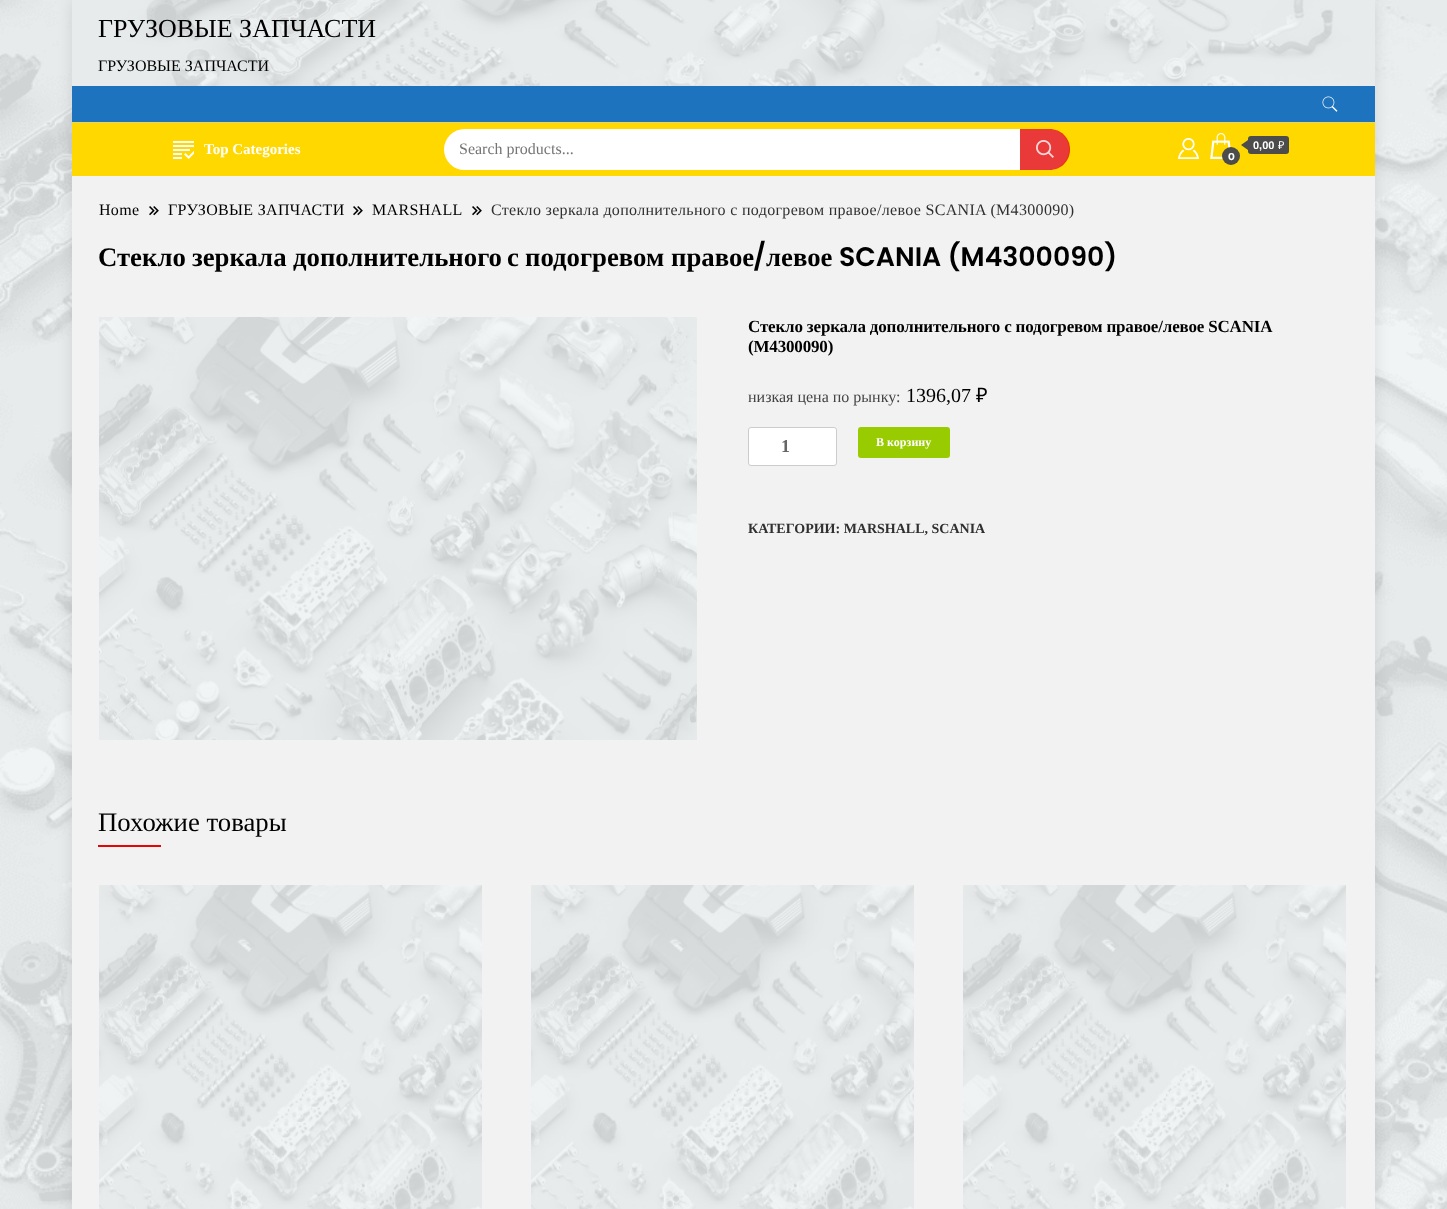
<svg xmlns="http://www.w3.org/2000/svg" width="1447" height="1209">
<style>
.a{font:26px Liberation Serif;fill:#000}
.b{font:16px Liberation Serif;fill:#000}
.c{font:bold 15px Liberation Serif;fill:#fff}
.d{font:16px Liberation Serif;fill:#757575}
.e{font:bold 11px Liberation Sans;fill:#fff}
.f{font:11px Noto Sans;fill:#fff}
.g{font:bold 10px Montserrat;fill:#fff}
.h{font:16px Liberation Serif;letter-spacing:0.32px;fill:#000}
.i{font:16px Liberation Serif;letter-spacing:0.32px;fill:#303030}
.j{font:bold 26.75px Liberation Serif;fill:#000}
.k{font:600 26.75px Poppins;fill:#000}
.l{font:bold 17px Liberation Serif;letter-spacing:-0.17px;fill:#000}
.m{font:16px Liberation Serif;fill:#444}
.n{font:20px Liberation Serif;fill:#000}
.o{font:20px Noto Sans;fill:#000}
.p{font:bold 18px Liberation Serif;fill:#666}
.q{font:bold 12px Liberation Serif;fill:#fff}
.r{font:bold 14px Liberation Serif;fill:#303030}
.s{font:26.75px Liberation Serif;fill:#000}
</style>
<rect width="100%" height="100%" fill="#fff"/>
<image href="1.png" x="0" y="0" width="1447" height="1209"/>
<path fill="#0000001a" filter="blur(7.5px)" d="M72 0h1303v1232H72z"/>
<path fill="#f2f2f2" d="M72 176h1303v1033H72z"/>
<image href="2.png" x="72" y="0" width="1303" height="86"/>
<path fill="#1e73be" d="M72 86h1303v36H72z"/>
<image href="3.png" x="1322" y="96" width="16" height="16"/>
<path fill="#ffd800" d="M72 123h1303v53H72z"/>
<path fill="#e8d56a" d="M72 122h1303v1H72z"/>
<image href="4.png" x="173" y="141" width="21" height="18"/>
<rect fill="#fff" x="444" y="129" width="625" height="41" rx="20.5"/>
<path fill="#e50707cc" d="M1020 129h29.5c11.5 0 20.5 9 20.5 20.5c0 11.5-9 20.5-20.5 20.5h-29.5z"/>
<image href="5.png" x="1036" y="140" width="18" height="18"/>
<image href="6.png" x="1178" y="138" width="21" height="21"/>
<image href="7.png" x="1210" y="133" width="21" height="26"/>
<rect fill="#4c4c4c" x="1248" y="136" width="41" height="18" rx="3"/>
<path fill="#4c4c4c" d="M1248 140v10l-7-5z"/>
<circle fill="#4c4c4c" cx="1231" cy="156" r="9"/>
<image href="8.png" x="149" y="206" width="10" height="10"/>
<image href="8.png" x="353" y="206" width="10" height="10"/>
<image href="8.png" x="472" y="206" width="10" height="10"/>
<image href="9.png" x="99" y="317" width="598" height="423"/>
<rect fill="#fff" stroke="#ccc" x="748.5" y="427.5" width="88" height="38" rx="2.5"/>
<rect fill="#9c0" x="858" y="427" width="92" height="31" rx="3"/>
<path fill="#e50707" d="M98 845h63v2H98z"/>
<image href="10.png" x="99" y="885" width="383" height="324"/>
<image href="10.png" x="531" y="885" width="383" height="324"/>
<image href="10.png" x="963" y="885" width="383" height="324"/>
<text class="a" x="98" y="37">ГРУЗОВЫЕ ЗАПЧАСТИ</text>
<text class="b" x="98" y="71">ГРУЗОВЫЕ ЗАПЧАСТИ</text>
<text class="c" x="204" y="154">Top Categories</text>
<text class="d" x="459" y="154">Search products...</text>
<text class="e" x="1253" y="149">0,00</text>
<text class="f" x="1278" y="149">₽</text>
<text class="g" x="1228" y="160">0</text>
<text class="h" x="99" y="215">Home</text>
<text class="h" x="168" y="215">ГРУЗОВЫЕ ЗАПЧАСТИ</text>
<text class="h" x="372" y="215">MARSHALL</text>
<text class="i" x="491" y="215">Стекло зеркала дополнительного с подогревом правое/левое SCANIA (M4300090)</text>
<text class="j" x="98" y="266">Стекло</text>
<text class="j" x="192" y="266">зеркала</text>
<text class="j" x="293" y="266">дополнительного</text>
<text class="j" x="507" y="266">с</text>
<text class="j" x="525" y="266">подогревом</text>
<text class="j" x="671" y="266">правое</text>
<text class="k" x="753" y="266">/</text>
<text class="j" x="766" y="266">левое</text>
<text class="k" x="839" y="266">SCANIA (M4300090)</text>
<text class="l" x="748" y="332">Стекло зеркала дополнительного с подогревом правое/левое SCANIA</text>
<text class="l" x="748" y="352">(M4300090)</text>
<text class="m" x="748" y="402">низкая цена по рынку:</text>
<text class="n" x="906" y="402">1396,07</text>
<text class="o" x="976" y="402">₽</text>
<text class="p" x="781" y="452">1</text>
<text class="q" x="876" y="446">В корзину</text>
<text class="r" x="748" y="533">КАТЕГОРИИ: MARSHALL, SCANIA</text>
<text class="s" x="98" y="831">Похожие товары</text>
</svg>
